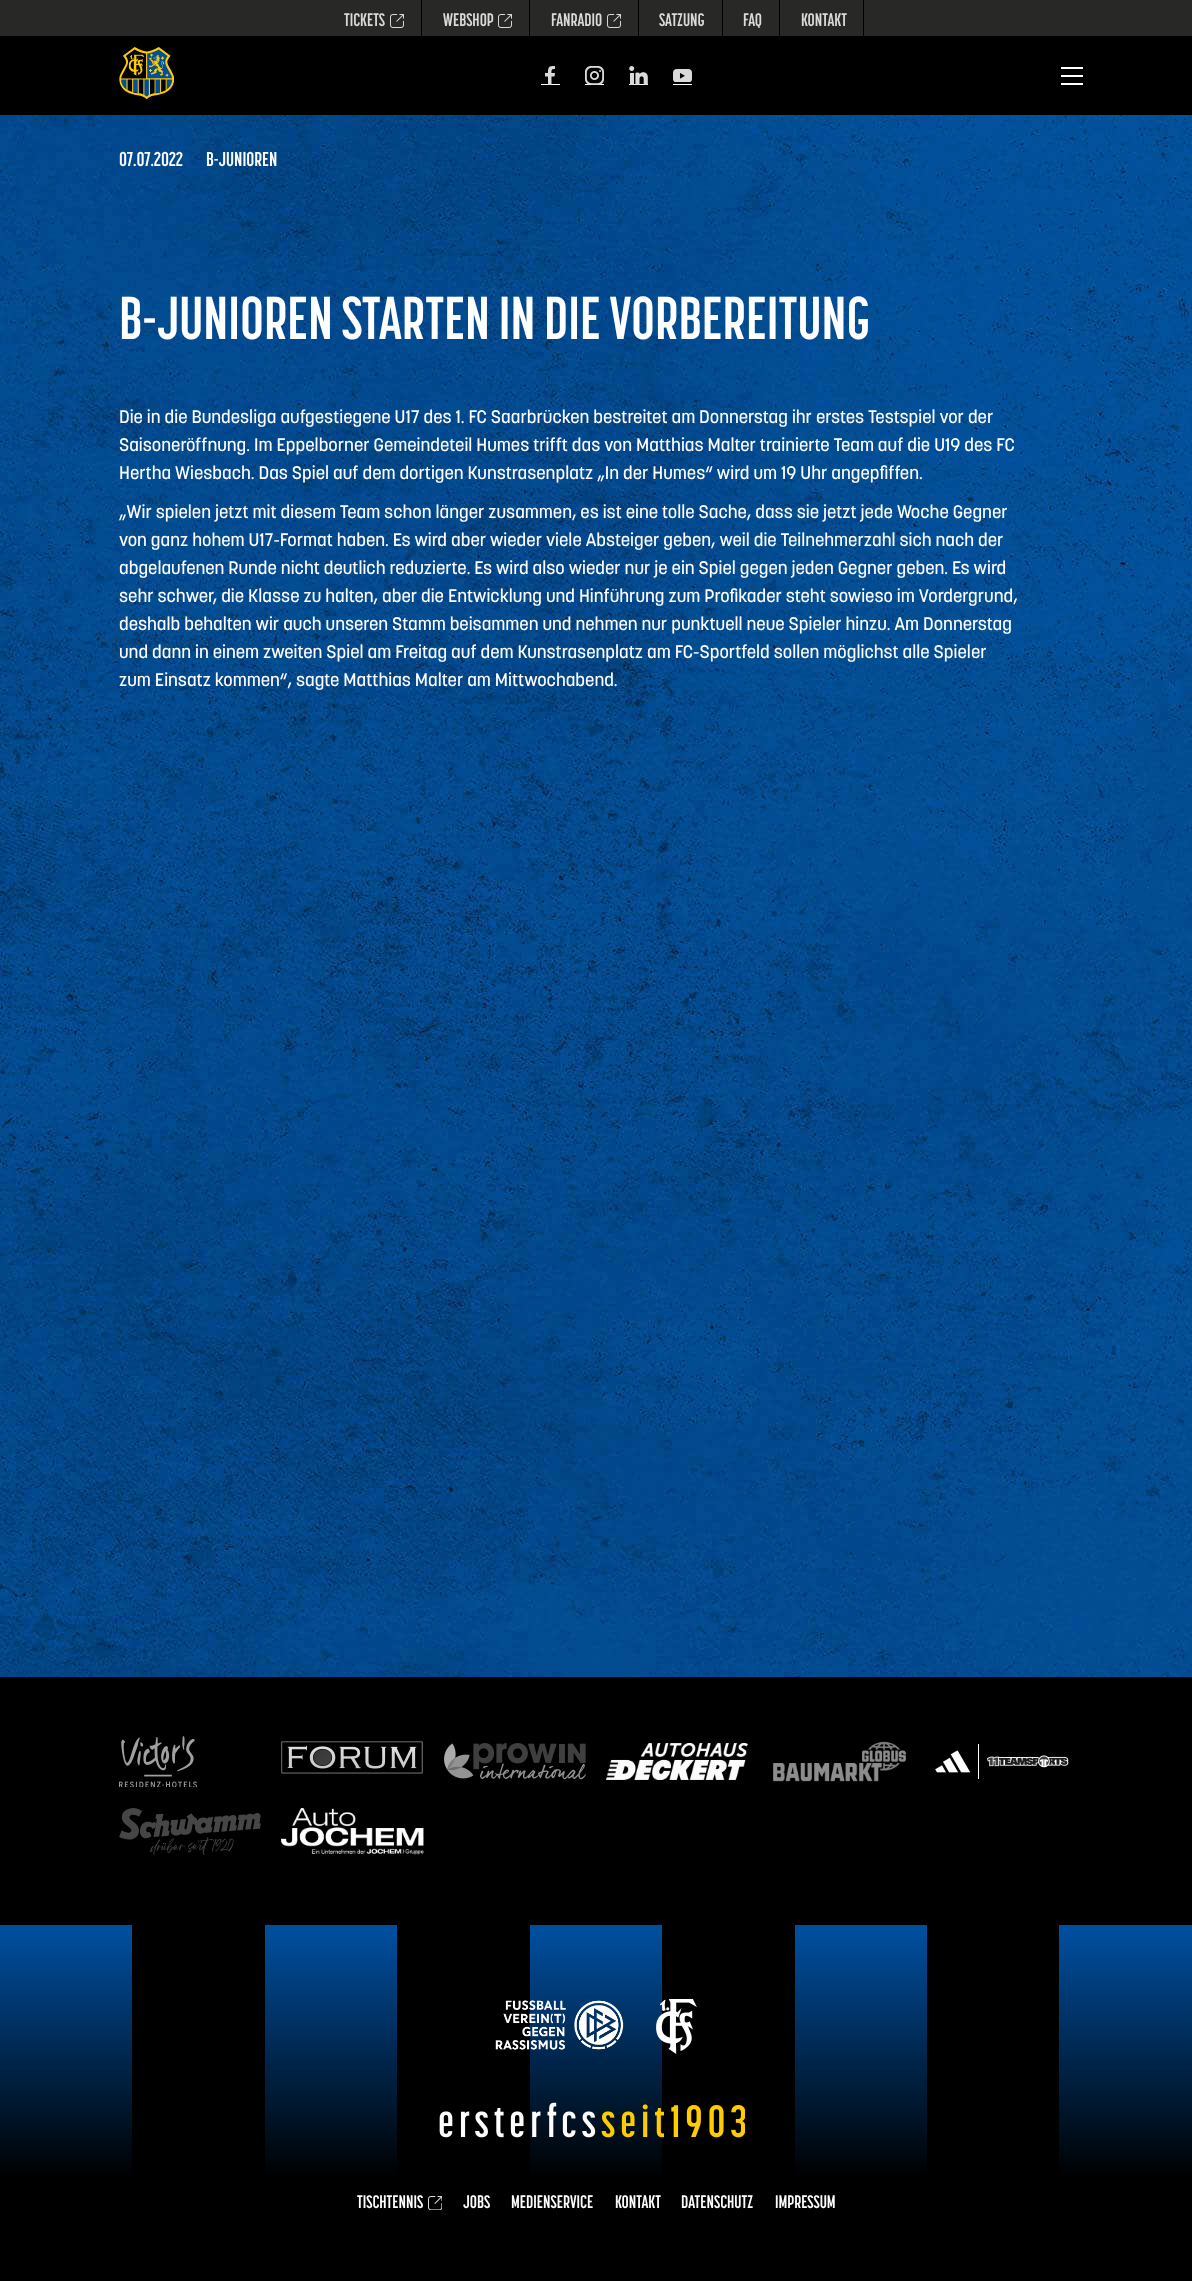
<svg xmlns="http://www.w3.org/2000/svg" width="1192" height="2281">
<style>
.a{font:bold 18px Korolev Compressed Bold;fill:#dadada}
.b{font:bold 20px Korolev Compressed Bold;fill:#fff}
.c{font:bold 60px Korolev Compressed Bold;fill:#fff}
.d{font:500 18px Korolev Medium;fill:#fff}
.e{font:bold 18px Korolev Compressed Bold;fill:#fff}
</style>
<defs>
<linearGradient id="g1" gradientUnits="userSpaceOnUse" x1="596" y1="2178" x2="596" y2="1928"><stop offset="0" stop-color="#000"/><stop offset="1" stop-color="#000" stop-opacity="0"/></linearGradient>
</defs>
<rect width="100%" height="100%" fill="#fff"/>
<image href="1.png" x="0" y="115" width="1192" height="1562"/>
<path fill="#282827" d="M0 0h1192v36H0z"/>
<path fill="#000" d="M421 0h1v36H421z"/>
<image href="2.png" x="390" y="14" width="14" height="14"/>
<path fill="#000" d="M529 0h1v36H529z"/>
<image href="2.png" x="498" y="14" width="14" height="14"/>
<path fill="#000" d="M638 0h1v36H638z"/>
<image href="2.png" x="607" y="14" width="14" height="14"/>
<path fill="#000" d="M722 0h1v36H722z"/>
<path fill="#000" d="M779 0h1v36H779z"/>
<path fill="#000" d="M863 0h1v36H863z"/>
<path fill="#000" d="M0 36h1192v79H0z"/>
<image href="3.png" x="119" y="47" width="55" height="52"/>
<path fill="#fff" d="M541 84h19v1H541z"/>
<path fill="#dadada" d="M552.5 66c-4.5 0-4.5 3.5-4.5 7h-3v3.5h3v8.5h3.5v-8.5h3l.5-3.5h-3.5c0-3.5 0-4 3.5-4v-3z"/>
<path fill="#fff" d="M585 84h19v1H585z"/>
<image href="4.png" x="585" y="66" width="19" height="19"/>
<path fill="#fff" d="M629 84h19v1H629z"/>
<image href="5.png" x="629" y="66" width="19" height="19"/>
<path fill="#fff" d="M673 84h19v1H673z"/>
<image href="6.png" x="673" y="69" width="19" height="13"/>
<path fill="#fff" d="M1061 67h22v2H1061z"/>
<path fill="#fff" d="M1061 75h22v2H1061z"/>
<path fill="#fff" d="M1061 83h22v2H1061z"/>
<path fill="#000" d="M0 1677h1192v604H0z"/>
<image href="7.png" x="119" y="1736" width="78" height="51"/>
<image href="8.png" x="281" y="1741" width="142" height="33"/>
<image href="9.png" x="444" y="1743" width="142" height="37"/>
<image href="10.png" x="606" y="1743" width="142" height="37"/>
<image href="11.png" x="773" y="1741" width="133" height="41"/>
<image href="12.png" x="935" y="1744" width="134" height="35"/>
<image href="13.png" x="119" y="1808" width="142" height="47"/>
<image href="14.png" x="281" y="1808" width="143" height="47"/>
<path fill="#004f9f" d="M0 1925h132v250H0z"/>
<path fill="#004f9f" d="M265 1925h132v250H265z"/>
<path fill="#004f9f" d="M530 1925h132v250H530z"/>
<path fill="#004f9f" d="M795 1925h132v250H795z"/>
<path fill="#004f9f" d="M1059 1925h133v250H1059z"/>
<path fill="url(#g1)" d="M0 1933h1192v242H0z"/>
<image href="15.png" x="495" y="2000" width="129" height="50"/>
<image href="16.png" x="656" y="1999" width="41" height="55"/>
<image href="17.png" x="439" y="2102" width="306" height="36"/>
<image href="18.png" x="428" y="2196" width="14" height="14"/>
<text class="a" x="344" y="26">TICKETS</text>
<text class="a" x="443" y="26">WEBSHOP</text>
<text class="a" x="551" y="26">FANRADIO</text>
<text class="a" x="659" y="26">SATZUNG</text>
<text class="a" x="743" y="26">FAQ</text>
<text class="a" x="801" y="26">KONTAKT</text>
<text class="b" x="119" y="166">07.07.2022</text>
<text class="b" x="206" y="166">B-JUNIOREN</text>
<text class="c" x="119" y="339">B-JUNIOREN STARTEN IN DIE VORBEREITUNG</text>
<text class="d" x="119" y="423">Die in die Bundesliga aufgestiegene U17 des 1. FC Saarbrücken bestreitet am Donnerstag ihr erstes Testspiel vor der</text>
<text class="d" x="119" y="451">Saisoneröffnung. Im Eppelborner Gemeindeteil Humes trifft das von Matthias Malter trainierte Team auf die U19 des FC</text>
<text class="d" x="119" y="479">Hertha Wiesbach. Das Spiel auf dem dortigen Kunstrasenplatz „In der Humes“ wird um 19 Uhr angepfiffen.</text>
<text class="d" x="119" y="518">„Wir spielen jetzt mit diesem Team schon länger zusammen, es ist eine tolle Sache, dass sie jetzt jede Woche Gegner</text>
<text class="d" x="119" y="546">von ganz hohem U17-Format haben. Es wird aber wieder viele Absteiger geben, weil die Teilnehmerzahl sich nach der</text>
<text class="d" x="119" y="574">abgelaufenen Runde nicht deutlich reduzierte. Es wird also wieder nur je ein Spiel gegen jeden Gegner geben. Es wird</text>
<text class="d" x="119" y="602">sehr schwer, die Klasse zu halten, aber die Entwicklung und Hinführung zum Profikader steht sowieso im Vordergrund,</text>
<text class="d" x="119" y="630">deshalb behalten wir auch unseren Stamm beisammen und nehmen nur punktuell neue Spieler hinzu. Am Donnerstag</text>
<text class="d" x="119" y="658">und dann in einem zweiten Spiel am Freitag auf dem Kunstrasenplatz am FC-Sportfeld sollen möglichst alle Spieler</text>
<text class="d" x="119" y="686">zum Einsatz kommen“, sagte Matthias Malter am Mittwochabend.</text>
<text class="e" x="357" y="2208">TISCHTENNIS</text>
<text class="e" x="463" y="2208">JOBS</text>
<text class="e" x="511" y="2208">MEDIENSERVICE</text>
<text class="e" x="615" y="2208">KONTAKT</text>
<text class="e" x="681" y="2208">DATENSCHUTZ</text>
<text class="e" x="775" y="2208">IMPRESSUM</text>
</svg>
